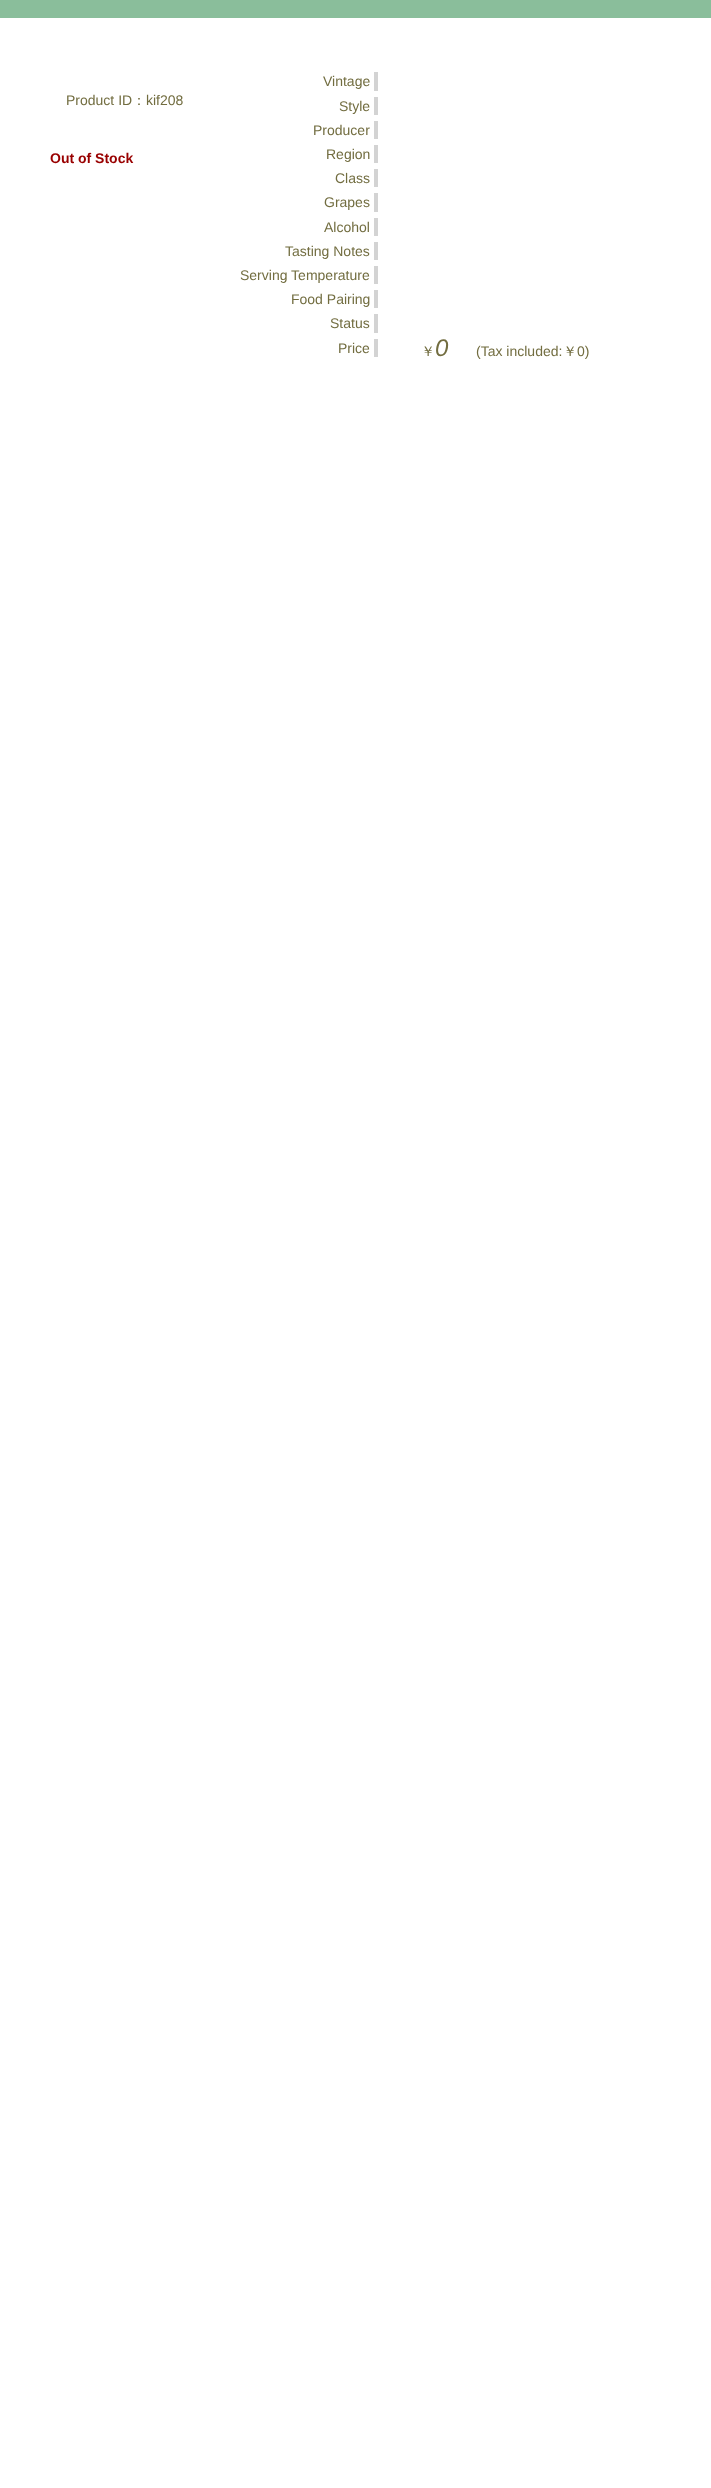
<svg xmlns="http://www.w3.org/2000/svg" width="711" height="2488">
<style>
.a{font:14px Liberation Sans;fill:#726d40}
.b{font:500 14px WenQuanYi Zen Hei;fill:#726d40}
.c{font:bold 14px Liberation Sans;fill:#900}
.d{font:italic 24px Liberation Sans;fill:#726d40}
</style>
<rect width="100%" height="100%" fill="#fff"/>
<path fill="#8abe9b" d="M0 0h711v18H0z"/>
<path fill="#d3d3d3" d="M374 72h4v19H374z"/>
<path fill="#d3d3d3" d="M374 97h4v18H374z"/>
<path fill="#d3d3d3" d="M374 121h4v18H374z"/>
<path fill="#d3d3d3" d="M374 145h4v18H374z"/>
<path fill="#d3d3d3" d="M374 169h4v18H374z"/>
<path fill="#d3d3d3" d="M374 193h4v19H374z"/>
<path fill="#d3d3d3" d="M374 218h4v18H374z"/>
<path fill="#d3d3d3" d="M374 242h4v18H374z"/>
<path fill="#d3d3d3" d="M374 266h4v18H374z"/>
<path fill="#d3d3d3" d="M374 290h4v18H374z"/>
<path fill="#d3d3d3" d="M374 314h4v19H374z"/>
<path fill="#d3d3d3" d="M374 339h4v18H374z"/>
<text class="a" x="66" y="105">Product ID</text>
<text class="b" x="132" y="105">：</text>
<text class="a" x="146" y="105">kif208</text>
<text class="c" x="50" y="163">Out of Stock</text>
<text class="a" x="323" y="86">Vintage</text>
<text class="a" x="339" y="111">Style</text>
<text class="a" x="313" y="135">Producer</text>
<text class="a" x="326" y="159">Region</text>
<text class="a" x="335" y="183">Class</text>
<text class="a" x="324" y="207">Grapes</text>
<text class="a" x="324" y="232">Alcohol</text>
<text class="a" x="285" y="256">Tasting Notes</text>
<text class="a" x="240" y="280">Serving Temperature</text>
<text class="a" x="291" y="304">Food Pairing</text>
<text class="a" x="330" y="328">Status</text>
<text class="a" x="338" y="353">Price</text>
<text class="b" x="421" y="356">￥</text>
<text class="d" x="435" y="356">0</text>
<text class="a" x="476" y="356">(Tax included:</text>
<text class="b" x="563" y="356">￥</text>
<text class="a" x="577" y="356">0)</text>
</svg>
